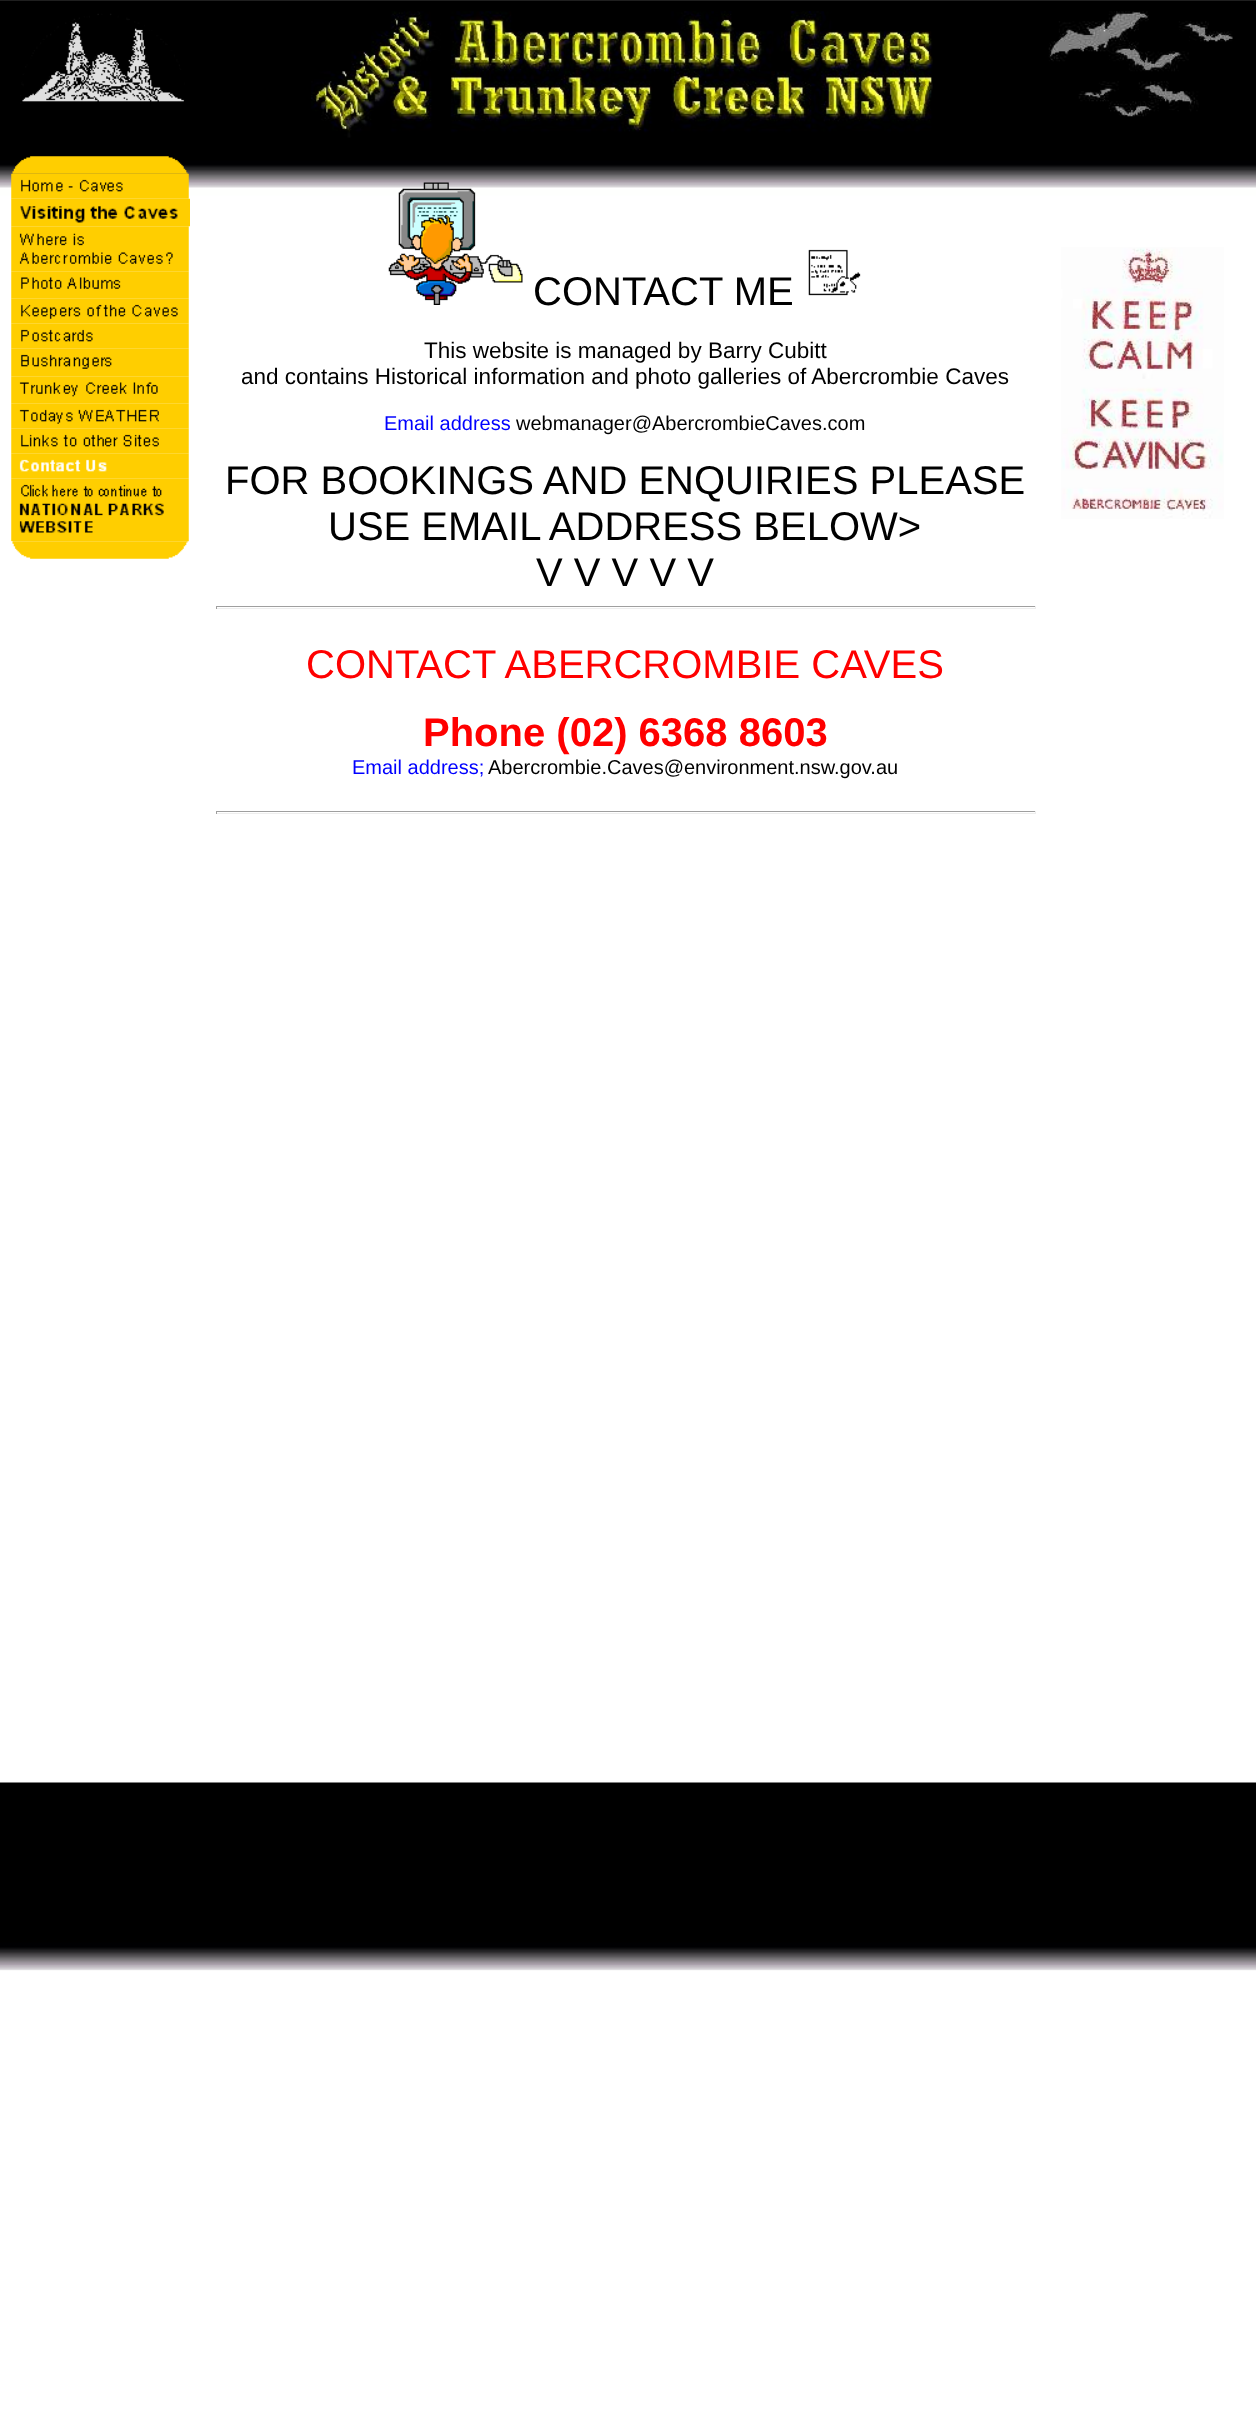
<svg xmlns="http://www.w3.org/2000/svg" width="1256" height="2416">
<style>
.a{font:40px Liberation Sans;fill:#000}
.b{font:22.5px Liberation Sans;fill:#000}
.c{font:20px Liberation Sans;fill:#00f}
.d{font:20px Liberation Sans;fill:#000}
.e{font:40px Liberation Sans;fill:#f00}
.f{font:bold 40px Liberation Sans;fill:#f00}
</style>
<rect width="100%" height="100%" fill="#fff"/>
<image href="1.png" x="0" y="0" width="1256" height="1971"/>
<image href="2.png" x="20" y="13" width="165" height="91"/>
<image href="3.png" x="12" y="156" width="176" height="18"/>
<image href="4.png" x="11" y="173" width="178" height="26"/>
<image href="5.png" x="11" y="198" width="179" height="29"/>
<image href="6.png" x="11" y="226" width="178" height="46"/>
<image href="7.png" x="11" y="271" width="178" height="28"/>
<image href="8.png" x="11" y="298" width="178" height="26"/>
<image href="9.png" x="11" y="323" width="178" height="26"/>
<image href="10.png" x="11" y="348" width="178" height="29"/>
<image href="11.png" x="11" y="376" width="178" height="28"/>
<image href="12.png" x="11" y="403" width="178" height="26"/>
<image href="13.png" x="11" y="428" width="178" height="26"/>
<image href="14.png" x="11" y="453" width="178" height="26"/>
<image href="15.png" x="11" y="478" width="178" height="64"/>
<image href="16.png" x="11" y="541" width="177" height="18"/>
<image href="17.png" x="311" y="11" width="622" height="127"/>
<image href="18.png" x="388" y="182" width="135" height="123"/>
<image href="19.png" x="808" y="249" width="53" height="47"/>
<path fill="#9f9f9f" d="M216 606h820v1H216z"/>
<path fill="#eee" d="M1035 606h1v3H1035z"/>
<path fill="#eee" d="M216 608h820v1H216z"/>
<path fill="#9f9f9f" d="M216 606h1v3H216z"/>
<path fill="#9f9f9f" d="M216 811h820v1H216z"/>
<path fill="#eee" d="M1035 811h1v3H1035z"/>
<path fill="#eee" d="M216 813h820v1H216z"/>
<path fill="#9f9f9f" d="M216 811h1v3H216z"/>
<image href="20.png" x="1048" y="11" width="185" height="106"/>
<image href="21.png" x="1061" y="247" width="163" height="272"/>
<text class="a" x="533" y="305">CONTACT ME</text>
<text class="b" x="424" y="358">This website is managed by Barry Cubitt</text>
<text class="b" x="241" y="384">and contains Historical information and photo galleries of Abercrombie Caves</text>
<text class="c" x="384" y="430">Email address</text>
<text class="d" x="516" y="430">webmanager@AbercrombieCaves.com</text>
<text class="a" x="225" y="494">FOR BOOKINGS AND ENQUIRIES PLEASE</text>
<text class="a" x="328" y="540">USE EMAIL ADDRESS BELOW&gt;</text>
<text class="a" x="536" y="586">V V V V V</text>
<text class="e" x="306" y="678">CONTACT ABERCROMBIE CAVES</text>
<text class="f" x="423" y="746">Phone (02) 6368 8603</text>
<text class="c" x="352" y="774">Email address;</text>
<text class="d" x="488" y="774">Abercrombie.Caves@environment.nsw.gov.au</text>
</svg>
